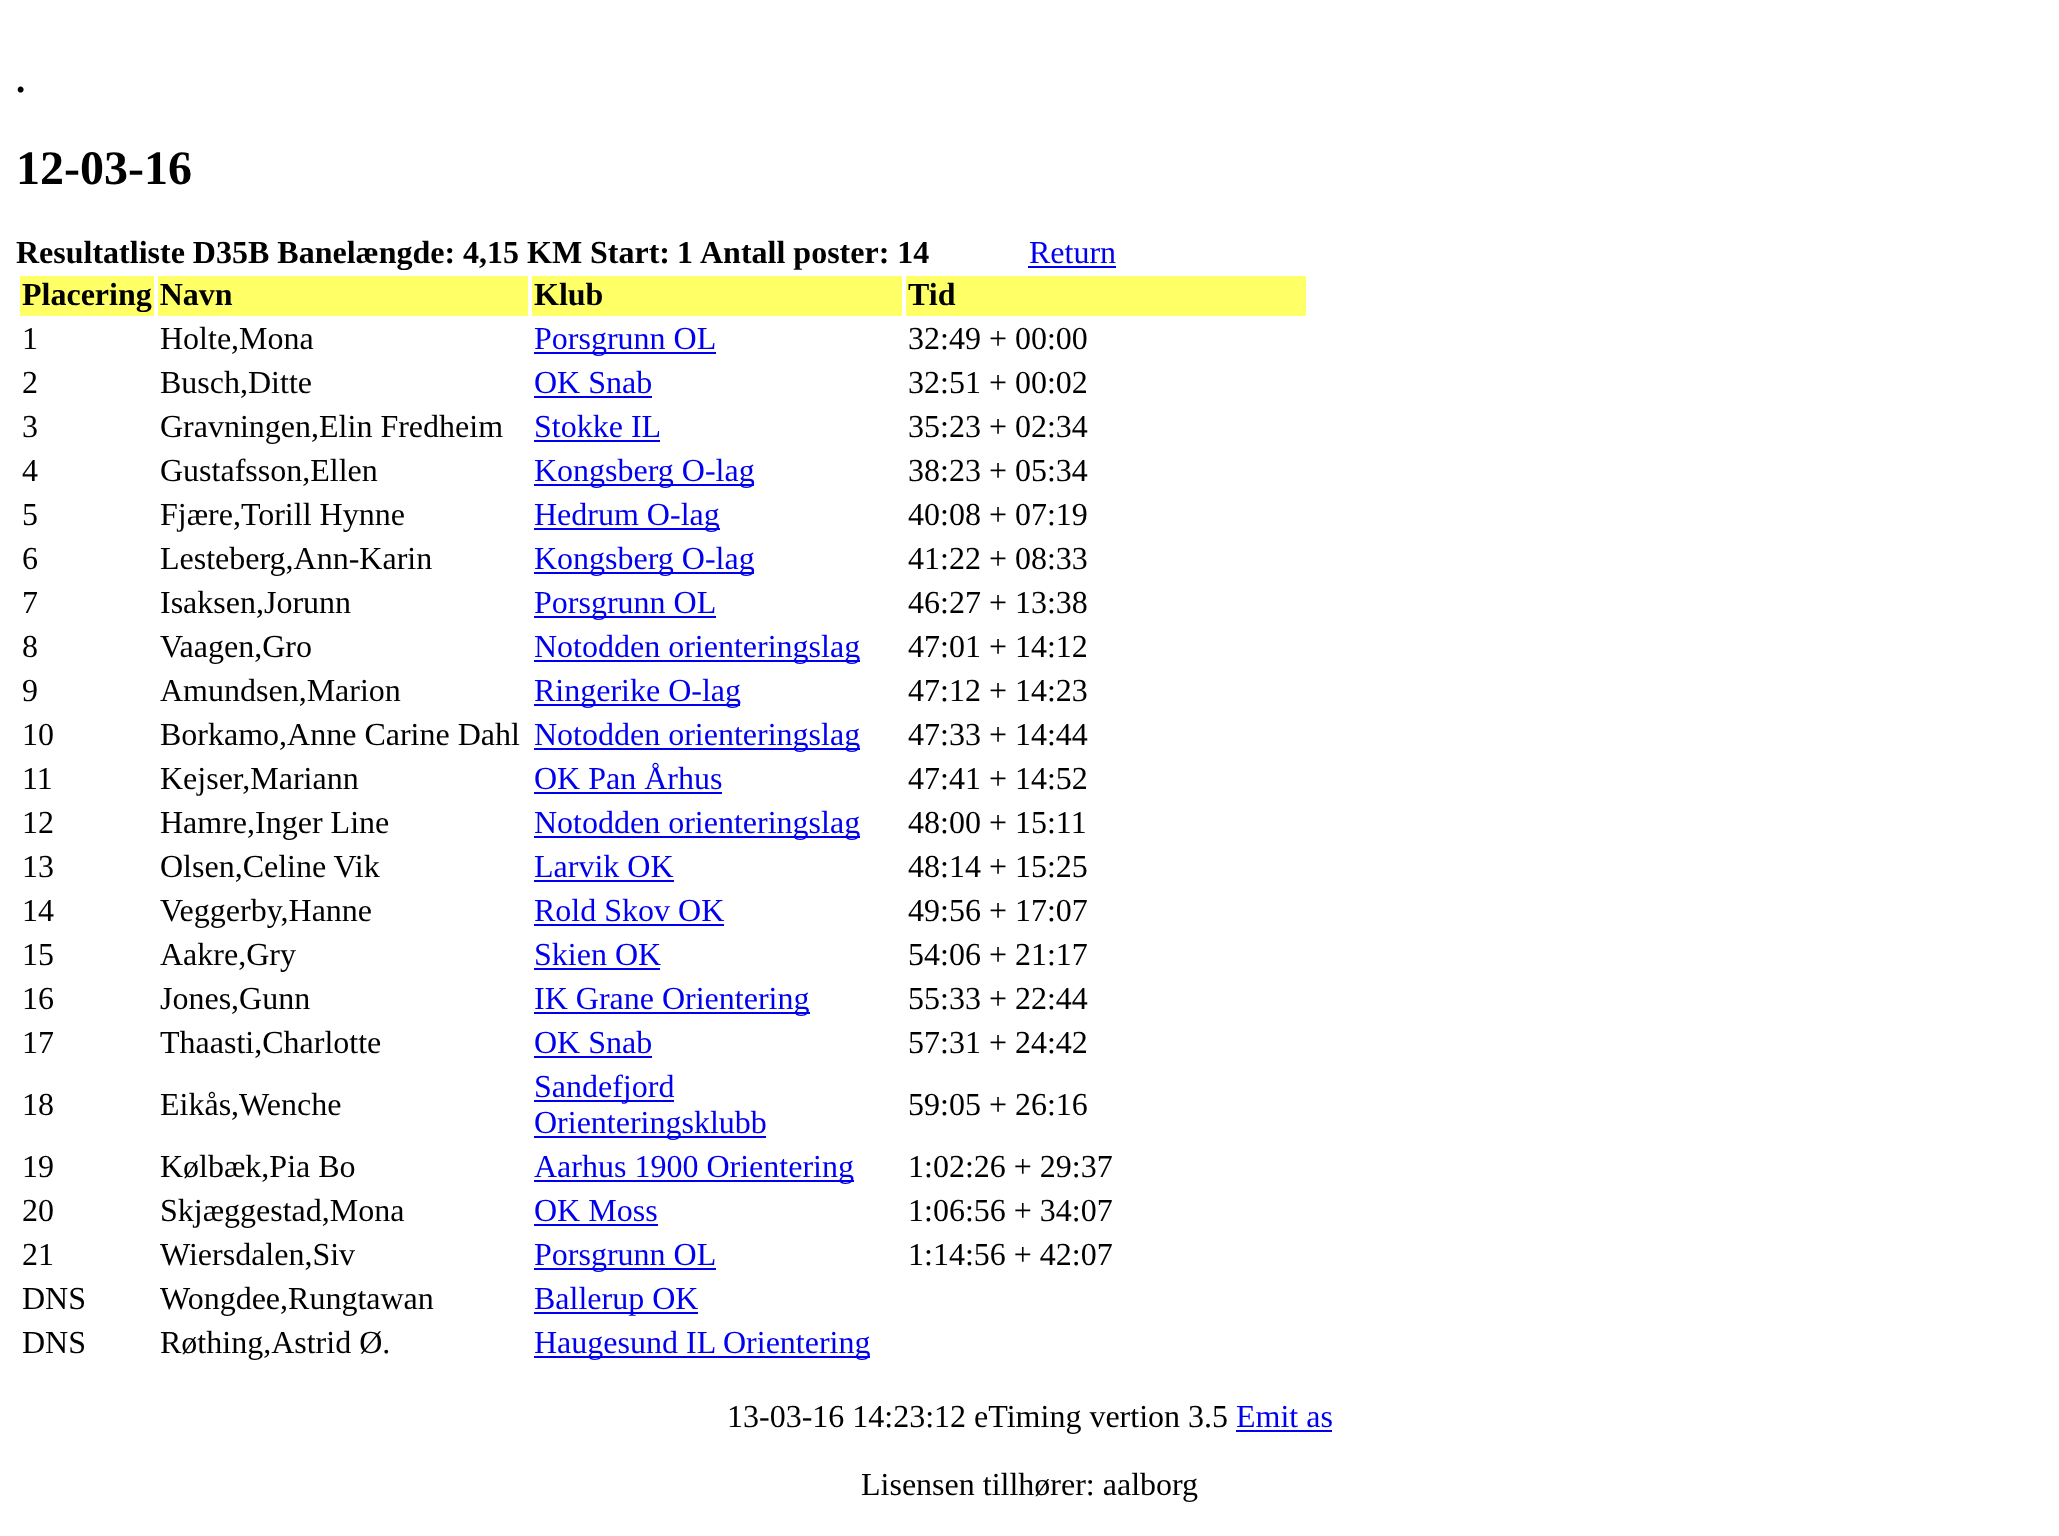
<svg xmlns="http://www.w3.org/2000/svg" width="2059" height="1536">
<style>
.a{font:bold 37px Liberation Serif;fill:#000}
.b{font:bold 48px Liberation Serif;fill:#000}
.c{font:bold 32px Liberation Serif;fill:#000}
.d{font:32px Liberation Serif;fill:#00e}
.e{font:32px Liberation Serif;fill:#000}
</style>
<rect width="100%" height="100%" fill="#fff"/>
<path fill="#00e" d="M1028 266h88v2H1028z"/>
<path fill="#ff6" d="M20 276h134v40H20z"/>
<path fill="#ff6" d="M158 276h370v40H158z"/>
<path fill="#ff6" d="M532 276h370v40H532z"/>
<path fill="#ff6" d="M906 276h400v40H906z"/>
<path fill="#00e" d="M534 352h182v2H534z"/>
<path fill="#00e" d="M534 396h118v2H534z"/>
<path fill="#00e" d="M534 440h126v2H534z"/>
<path fill="#00e" d="M534 484h220v2H534z"/>
<path fill="#00e" d="M534 528h186v2H534z"/>
<path fill="#00e" d="M534 572h220v2H534z"/>
<path fill="#00e" d="M534 616h182v2H534z"/>
<path fill="#00e" d="M534 660h326v2H534z"/>
<path fill="#00e" d="M534 704h206v2H534z"/>
<path fill="#00e" d="M534 748h326v2H534z"/>
<path fill="#00e" d="M534 792h188v2H534z"/>
<path fill="#00e" d="M534 836h326v2H534z"/>
<path fill="#00e" d="M534 880h140v2H534z"/>
<path fill="#00e" d="M534 924h190v2H534z"/>
<path fill="#00e" d="M534 968h126v2H534z"/>
<path fill="#00e" d="M534 1012h276v2H534z"/>
<path fill="#00e" d="M534 1056h118v2H534z"/>
<path fill="#00e" d="M534 1100h140v2H534z"/>
<path fill="#00e" d="M534 1136h232v2H534z"/>
<path fill="#00e" d="M534 1180h320v2H534z"/>
<path fill="#00e" d="M534 1224h124v2H534z"/>
<path fill="#00e" d="M534 1268h182v2H534z"/>
<path fill="#00e" d="M534 1312h164v2H534z"/>
<path fill="#00e" d="M534 1356h336v2H534z"/>
<path fill="#00e" d="M1236 1430h96v2H1236z"/>
<text class="a" x="16" y="92">.</text>
<text class="b" x="16" y="184">12-03-16</text>
<text class="c" x="16" y="263">Resultatliste D35B Banelængde: 4,15 KM</text>
<text class="c" x="590" y="263" word-spacing="-1">Start: 1</text>
<text class="c" x="700" y="263">Antall poster: 14</text>
<text class="d" x="1029" y="263">Return</text>
<text class="c" x="22" y="305">Placering Navn</text>
<text class="c" x="534" y="305">Klub</text>
<text class="c" x="908" y="305">Tid</text>
<text class="e" x="22" y="349">1</text>
<text class="e" x="160" y="349">Holte,Mona</text>
<text class="d" x="534" y="349">Porsgrunn OL</text>
<text class="e" x="908" y="349">32:49 + 00:00</text>
<text class="e" x="22" y="393">2</text>
<text class="e" x="160" y="393">Busch,Ditte</text>
<text class="d" x="534" y="393">OK Snab</text>
<text class="e" x="908" y="393">32:51 + 00:02</text>
<text class="e" x="22" y="437">3</text>
<text class="e" x="160" y="437">Gravningen,Elin Fredheim</text>
<text class="d" x="534" y="437">Stokke IL</text>
<text class="e" x="908" y="437">35:23 + 02:34</text>
<text class="e" x="22" y="481">4</text>
<text class="e" x="160" y="481">Gustafsson,Ellen</text>
<text class="d" x="534" y="481">Kongsberg O-lag</text>
<text class="e" x="908" y="481">38:23 + 05:34</text>
<text class="e" x="22" y="525">5</text>
<text class="e" x="160" y="525">Fjære,Torill Hynne</text>
<text class="d" x="534" y="525">Hedrum O-lag</text>
<text class="e" x="908" y="525">40:08 + 07:19</text>
<text class="e" x="22" y="569">6</text>
<text class="e" x="160" y="569">Lesteberg,Ann-Karin</text>
<text class="d" x="534" y="569">Kongsberg O-lag</text>
<text class="e" x="908" y="569">41:22 + 08:33</text>
<text class="e" x="22" y="613">7</text>
<text class="e" x="160" y="613">Isaksen,Jorunn</text>
<text class="d" x="534" y="613">Porsgrunn OL</text>
<text class="e" x="908" y="613">46:27 + 13:38</text>
<text class="e" x="22" y="657">8</text>
<text class="e" x="160" y="657">Vaagen,Gro</text>
<text class="d" x="534" y="657">Notodden orienteringslag</text>
<text class="e" x="908" y="657">47:01 + 14:12</text>
<text class="e" x="22" y="701">9</text>
<text class="e" x="160" y="701">Amundsen,Marion</text>
<text class="d" x="534" y="701">Ringerike O-lag</text>
<text class="e" x="908" y="701">47:12 + 14:23</text>
<text class="e" x="22" y="745">10</text>
<text class="e" x="160" y="745">Borkamo,Anne Carine Dahl</text>
<text class="d" x="534" y="745">Notodden orienteringslag</text>
<text class="e" x="908" y="745">47:33 + 14:44</text>
<text class="e" x="22" y="789">11</text>
<text class="e" x="160" y="789">Kejser,Mariann</text>
<text class="d" x="534" y="789">OK Pan Århus</text>
<text class="e" x="908" y="789">47:41 + 14:52</text>
<text class="e" x="22" y="833">12</text>
<text class="e" x="160" y="833">Hamre,Inger Line</text>
<text class="d" x="534" y="833">Notodden orienteringslag</text>
<text class="e" x="908" y="833">48:00 + 15:11</text>
<text class="e" x="22" y="877">13</text>
<text class="e" x="160" y="877">Olsen,Celine Vik</text>
<text class="d" x="534" y="877">Larvik OK</text>
<text class="e" x="908" y="877">48:14 + 15:25</text>
<text class="e" x="22" y="921">14</text>
<text class="e" x="160" y="921">Veggerby,Hanne</text>
<text class="d" x="534" y="921">Rold Skov OK</text>
<text class="e" x="908" y="921">49:56 + 17:07</text>
<text class="e" x="22" y="965">15</text>
<text class="e" x="160" y="965">Aakre,Gry</text>
<text class="d" x="534" y="965">Skien OK</text>
<text class="e" x="908" y="965">54:06 + 21:17</text>
<text class="e" x="22" y="1009">16</text>
<text class="e" x="160" y="1009">Jones,Gunn</text>
<text class="d" x="534" y="1009">IK Grane Orientering</text>
<text class="e" x="908" y="1009">55:33 + 22:44</text>
<text class="e" x="22" y="1053">17</text>
<text class="e" x="160" y="1053">Thaasti,Charlotte</text>
<text class="d" x="534" y="1053">OK Snab</text>
<text class="e" x="908" y="1053">57:31 + 24:42</text>
<text class="e" x="22" y="1115">18</text>
<text class="e" x="160" y="1115">Eikås,Wenche</text>
<text class="d" x="534" y="1097">Sandefjord</text>
<text class="d" x="534" y="1133">Orienteringsklubb</text>
<text class="e" x="908" y="1115">59:05 + 26:16</text>
<text class="e" x="22" y="1177">19</text>
<text class="e" x="160" y="1177">Kølbæk,Pia Bo</text>
<text class="d" x="534" y="1177">Aarhus 1900 Orientering</text>
<text class="e" x="908" y="1177">1:02:26 + 29:37</text>
<text class="e" x="22" y="1221">20</text>
<text class="e" x="160" y="1221">Skjæggestad,Mona</text>
<text class="d" x="534" y="1221">OK Moss</text>
<text class="e" x="908" y="1221">1:06:56 + 34:07</text>
<text class="e" x="22" y="1265">21</text>
<text class="e" x="160" y="1265">Wiersdalen,Siv</text>
<text class="d" x="534" y="1265">Porsgrunn OL</text>
<text class="e" x="908" y="1265">1:14:56 + 42:07</text>
<text class="e" x="22" y="1309">DNS</text>
<text class="e" x="160" y="1309">Wongdee,Rungtawan</text>
<text class="d" x="534" y="1309">Ballerup OK</text>
<text class="e" x="22" y="1353">DNS</text>
<text class="e" x="160" y="1353">Røthing,Astrid Ø.</text>
<text class="d" x="534" y="1353">Haugesund IL Orientering</text>
<text class="e" x="727" y="1427">13-03-16 14:23:12 eTiming vertion 3.5</text>
<text class="d" x="1236" y="1427">Emit as</text>
<text class="e" x="861" y="1495">Lisensen tillhører: aalborg</text>
</svg>
